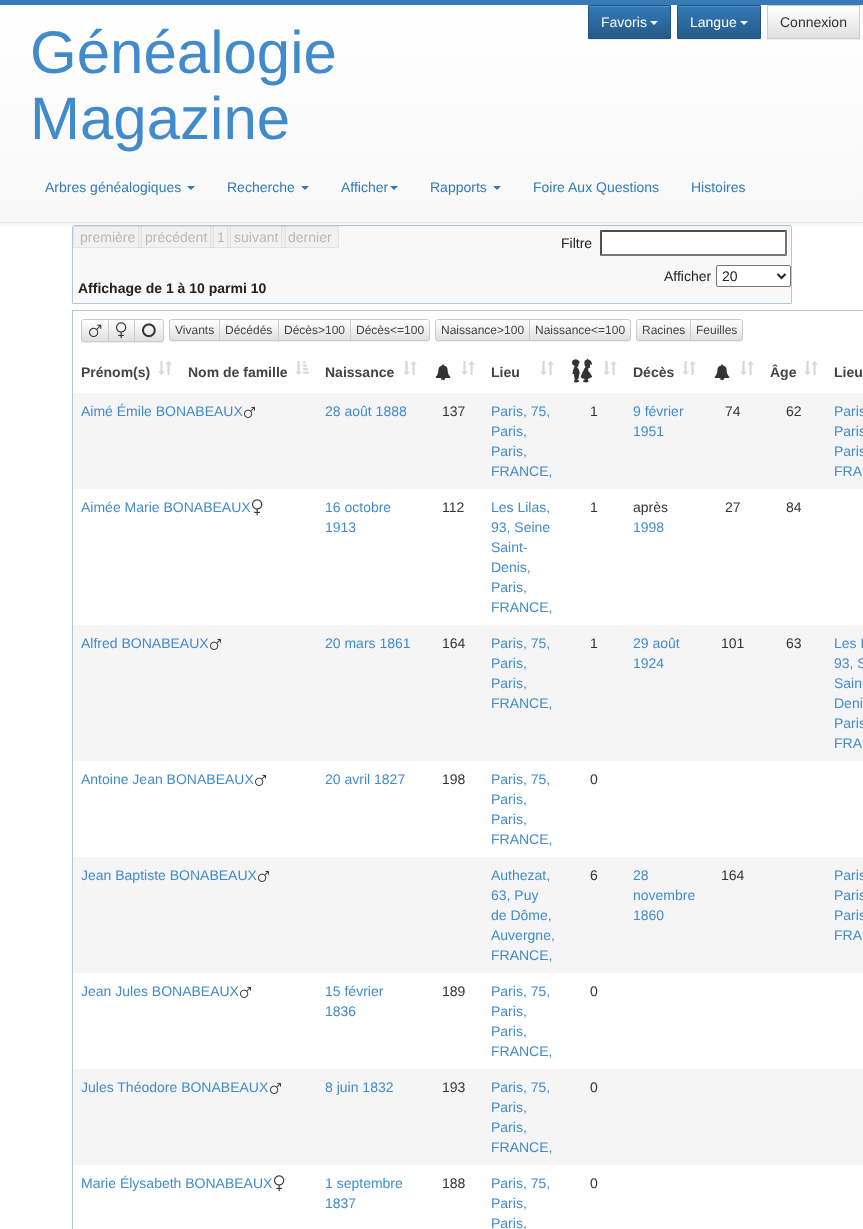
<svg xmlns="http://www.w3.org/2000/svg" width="863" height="1229">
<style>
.a{font:14px Liberation Sans;fill:#fff}
.b{font:14px Liberation Sans;fill:#333}
.c{font:60px Liberation Sans;fill:#428bca}
.d{font:14px Liberation Sans;fill:#337ab7}
.e{font:14px Liberation Sans;fill:#b9b9b9}
.f{font:14px Liberation Sans;fill:#222}
.g{font:bold 14px Liberation Sans;fill:#222}
.h{font:12px Liberation Sans;fill:#444}
.i{font:bold 14px Liberation Sans;fill:#444}
.j{font:14px Liberation Sans;fill:#428bca}
</style>
<defs>
<linearGradient id="g1" gradientUnits="userSpaceOnUse" x1="432" y1="5" x2="432" y2="222"><stop offset="0" stop-color="#fff"/><stop offset="1" stop-color="#f8f8f8"/></linearGradient>
<linearGradient id="g2" gradientUnits="userSpaceOnUse" x1="630" y1="6" x2="630" y2="38"><stop offset="0" stop-color="#337ab7"/><stop offset="1" stop-color="#265a88"/></linearGradient>
<linearGradient id="g3" gradientUnits="userSpaceOnUse" x1="719" y1="6" x2="719" y2="38"><stop offset="0" stop-color="#337ab7"/><stop offset="1" stop-color="#265a88"/></linearGradient>
<linearGradient id="g4" gradientUnits="userSpaceOnUse" x1="814" y1="6" x2="814" y2="38"><stop offset="0" stop-color="#fff"/><stop offset="1" stop-color="#e0e0e0"/></linearGradient>
<clipPath id="clip1"><path d="M84 319h25v23h-25c-1.5 0-3-1.5-3-3v-17c0-1.5 1.5-3 3-3z"/></clipPath>
<linearGradient id="g5" gradientUnits="userSpaceOnUse" x1="95" y1="320" x2="95" y2="341"><stop offset="0" stop-color="#fff"/><stop offset="1" stop-color="#e0e0e0"/></linearGradient>
<linearGradient id="g6" gradientUnits="userSpaceOnUse" x1="122" y1="320" x2="122" y2="341"><stop offset="0" stop-color="#fff"/><stop offset="1" stop-color="#e0e0e0"/></linearGradient>
<clipPath id="clip2"><path d="M134 319h27c1.5 0 3 1.5 3 3v17c0 1.5-1.5 3-3 3h-27z"/></clipPath>
<linearGradient id="g7" gradientUnits="userSpaceOnUse" x1="149" y1="320" x2="149" y2="341"><stop offset="0" stop-color="#fff"/><stop offset="1" stop-color="#e0e0e0"/></linearGradient>
<clipPath id="clip3"><path d="M172 319h48v22h-48c-1.5 0-3-1.5-3-3v-16c0-1.5 1.5-3 3-3z"/></clipPath>
<linearGradient id="g8" gradientUnits="userSpaceOnUse" x1="195" y1="320" x2="195" y2="340"><stop offset="0" stop-color="#fff"/><stop offset="1" stop-color="#e0e0e0"/></linearGradient>
<linearGradient id="g9" gradientUnits="userSpaceOnUse" x1="249" y1="320" x2="249" y2="340"><stop offset="0" stop-color="#fff"/><stop offset="1" stop-color="#e0e0e0"/></linearGradient>
<linearGradient id="g10" gradientUnits="userSpaceOnUse" x1="315" y1="320" x2="315" y2="340"><stop offset="0" stop-color="#fff"/><stop offset="1" stop-color="#e0e0e0"/></linearGradient>
<clipPath id="clip4"><path d="M350 319h77c1.5 0 3 1.5 3 3v16c0 1.5-1.5 3-3 3h-77z"/></clipPath>
<linearGradient id="g11" gradientUnits="userSpaceOnUse" x1="390" y1="320" x2="390" y2="340"><stop offset="0" stop-color="#fff"/><stop offset="1" stop-color="#e0e0e0"/></linearGradient>
<clipPath id="clip5"><path d="M438 319h92v22h-92c-1.5 0-3-1.5-3-3v-16c0-1.5 1.5-3 3-3z"/></clipPath>
<linearGradient id="g12" gradientUnits="userSpaceOnUse" x1="483" y1="320" x2="483" y2="340"><stop offset="0" stop-color="#fff"/><stop offset="1" stop-color="#e0e0e0"/></linearGradient>
<clipPath id="clip6"><path d="M529 319h99c1.5 0 3 1.5 3 3v16c0 1.5-1.5 3-3 3h-99z"/></clipPath>
<linearGradient id="g13" gradientUnits="userSpaceOnUse" x1="580" y1="320" x2="580" y2="340"><stop offset="0" stop-color="#fff"/><stop offset="1" stop-color="#e0e0e0"/></linearGradient>
<clipPath id="clip7"><path d="M639 319h52v22h-52c-1.5 0-3-1.5-3-3v-16c0-1.5 1.5-3 3-3z"/></clipPath>
<linearGradient id="g14" gradientUnits="userSpaceOnUse" x1="664" y1="320" x2="664" y2="340"><stop offset="0" stop-color="#fff"/><stop offset="1" stop-color="#e0e0e0"/></linearGradient>
<clipPath id="clip8"><path d="M690 319h50c1.5 0 3 1.5 3 3v16c0 1.5-1.5 3-3 3h-50z"/></clipPath>
<linearGradient id="g15" gradientUnits="userSpaceOnUse" x1="717" y1="320" x2="717" y2="340"><stop offset="0" stop-color="#fff"/><stop offset="1" stop-color="#e0e0e0"/></linearGradient>
</defs>
<rect width="100%" height="100%" fill="#fff"/>
<path fill="#f8f8f8" stroke="#b2c7d7" d="M75 225.5h714c1.5 0 2.5 1 2.5 2.5v75.5h-719v-75.5c0-1.5 1-2.5 2.5-2.5z"/>
<path fill="#e6e6e659" d="M73 226h69v22H73z"/>
<path fill="none" stroke="#cccccc59" d="M73.5 226.5h68v21H73.5z"/>
<path fill="#e6e6e659" d="M138 226h76v22H138z"/>
<path fill="none" stroke="#cccccc59" d="M138.5 226.5h75v21H138.5z"/>
<path fill="#e6e6e659" d="M210 226h21v22H210z"/>
<path fill="none" stroke="#cccccc59" d="M210.5 226.5h20v21H210.5z"/>
<path fill="#e6e6e659" d="M227 226h59v22H227z"/>
<path fill="none" stroke="#cccccc59" d="M227.5 226.5h58v21H227.5z"/>
<path fill="#e6e6e659" d="M281 226h58v22H281z"/>
<path fill="none" stroke="#cccccc59" d="M281.5 226.5h57v21H281.5z"/>
<path fill="#fff" d="M600 230h187v26H600z"/>
<path fill="#4f4f4f" d="M600 230h187l-2 2h-183z"/>
<path fill="#767676" d="M787 230v26l-2-2v-22z"/>
<path fill="#767676" d="M787 256h-187l2-2h183z"/>
<path fill="#4f4f4f" d="M600 256v-26l2 2v22z"/>
<path fill="#00000012" filter="blur(2.5px)" d="M0 1h863v223H0z"/>
<path fill="url(#g1)" d="M0 5h863v217H0z"/>
<path fill="#377bb5" d="M0 0h863v5H0z"/>
<path fill="#e7e7e7" d="M0 222h863v1H0z"/>
<path fill="#00000012" filter="blur(0.5px)" d="M588 6h83v34H588z"/>
<path fill="url(#g2)" d="M589 7h81v31H589z"/>
<path fill="#528ec1" d="M589 6h81v1H589z"/>
<path fill="none" stroke="#245580" d="M588.5 5.5h82v33H588.5z"/>
<path fill="#fff" d="M650 21h8l-4 4z"/>
<path fill="#00000012" filter="blur(0.5px)" d="M677 6h84v34H677z"/>
<path fill="url(#g3)" d="M678 7h82v31H678z"/>
<path fill="#528ec1" d="M678 6h82v1H678z"/>
<path fill="none" stroke="#245580" d="M677.5 5.5h83v33H677.5z"/>
<path fill="#fff" d="M740 21h8l-4 4z"/>
<path fill="#00000012" filter="blur(0.5px)" d="M767 6h93v34H767z"/>
<path fill="url(#g4)" d="M768 6h91v32H768z"/>
<path fill="none" stroke="#ccc" d="M767.5 5.5h92v33H767.5z"/>
<path fill="#337ab7" d="M187 186h8l-4 4z"/>
<path fill="#337ab7" d="M301 186h8l-4 4z"/>
<path fill="#337ab7" d="M390 186h8l-4 4z"/>
<path fill="#337ab7" d="M493 186h8l-4 4z"/>
<rect fill="#fff" stroke="#767676" x="716.5" y="265.5" width="74" height="21" rx="1.5"/>
<path fill="none" stroke="#222" stroke-width="2" d="M777.5 274l4 4l4-4"/>
<path fill="#b2c7d7" d="M72 310h791v1H72z"/>
<path fill="#b2c7d7" d="M72 310h1v919H72z"/>
<rect fill="#00000012" filter="blur(0.5px)" x="81" y="320" width="28" height="23" rx="3"/>
<g clip-path="url(#clip1)">
<path fill="url(#g5)" d="M81 320h27v21H81z"/>
</g>
<path fill="none" stroke="#ccc" d="M84 319.5h24.5v22h-24.5c-1.5 0-2.5-1-2.5-2.5v-17c0-1.5 1-2.5 2.5-2.5z"/>
<image href="1.png" x="89" y="324" width="13" height="13"/>
<path fill="#00000012" filter="blur(0.5px)" d="M108 320h27v23H108z"/>
<path fill="url(#g6)" d="M109 320h25v21H109z"/>
<path fill="none" stroke="#ccc" d="M108.5 319.5h26v22H108.5z"/>
<image href="2.png" x="116" y="322" width="11" height="17"/>
<rect fill="#00000012" filter="blur(0.5px)" x="134" y="320" width="30" height="23" rx="3"/>
<g clip-path="url(#clip2)">
<path fill="url(#g7)" d="M135 320h29v21H135z"/>
</g>
<path fill="none" stroke="#ccc" d="M134.5 319.5h26.5c1.5 0 2.5 1 2.5 2.5v17c0 1.5-1 2.5-2.5 2.5h-26.5z"/>
<image href="3.png" x="142" y="323" width="14" height="15"/>
<rect fill="#00000012" filter="blur(0.5px)" x="169" y="320" width="51" height="22" rx="3"/>
<g clip-path="url(#clip3)">
<path fill="url(#g8)" d="M169 320h50v20H169z"/>
</g>
<path fill="none" stroke="#ccc" d="M172 319.5h47.5v21h-47.5c-1.5 0-2.5-1-2.5-2.5v-16c0-1.5 1-2.5 2.5-2.5z"/>
<path fill="#00000012" filter="blur(0.5px)" d="M219 320h60v22H219z"/>
<path fill="url(#g9)" d="M220 320h58v20H220z"/>
<path fill="none" stroke="#ccc" d="M219.5 319.5h59v21H219.5z"/>
<path fill="#00000012" filter="blur(0.5px)" d="M278 320h73v22H278z"/>
<path fill="url(#g10)" d="M279 320h71v20H279z"/>
<path fill="none" stroke="#ccc" d="M278.5 319.5h72v21H278.5z"/>
<rect fill="#00000012" filter="blur(0.5px)" x="350" y="320" width="80" height="22" rx="3"/>
<g clip-path="url(#clip4)">
<path fill="url(#g11)" d="M351 320h79v20H351z"/>
</g>
<path fill="none" stroke="#ccc" d="M350.5 319.5h76.5c1.5 0 2.5 1 2.5 2.5v16c0 1.5-1 2.5-2.5 2.5h-76.5z"/>
<rect fill="#00000012" filter="blur(0.5px)" x="435" y="320" width="95" height="22" rx="3"/>
<g clip-path="url(#clip5)">
<path fill="url(#g12)" d="M435 320h94v20H435z"/>
</g>
<path fill="none" stroke="#ccc" d="M438 319.5h91.5v21h-91.5c-1.5 0-2.5-1-2.5-2.5v-16c0-1.5 1-2.5 2.5-2.5z"/>
<rect fill="#00000012" filter="blur(0.5px)" x="529" y="320" width="102" height="22" rx="3"/>
<g clip-path="url(#clip6)">
<path fill="url(#g13)" d="M530 320h101v20H530z"/>
</g>
<path fill="none" stroke="#ccc" d="M529.5 319.5h98.5c1.5 0 2.5 1 2.5 2.5v16c0 1.5-1 2.5-2.5 2.5h-98.5z"/>
<rect fill="#00000012" filter="blur(0.5px)" x="636" y="320" width="55" height="22" rx="3"/>
<g clip-path="url(#clip7)">
<path fill="url(#g14)" d="M636 320h54v20H636z"/>
</g>
<path fill="none" stroke="#ccc" d="M639 319.5h51.5v21h-51.5c-1.5 0-2.5-1-2.5-2.5v-16c0-1.5 1-2.5 2.5-2.5z"/>
<rect fill="#00000012" filter="blur(0.5px)" x="690" y="320" width="53" height="22" rx="3"/>
<g clip-path="url(#clip8)">
<path fill="url(#g15)" d="M691 320h52v20H691z"/>
</g>
<path fill="none" stroke="#ccc" d="M690.5 319.5h49.5c1.5 0 2.5 1 2.5 2.5v16c0 1.5-1 2.5-2.5 2.5h-49.5z"/>
<image href="4.png" x="158" y="361" width="14" height="14"/>
<image href="5.png" x="295" y="361" width="14" height="14"/>
<image href="4.png" x="403" y="361" width="14" height="14"/>
<image href="6.png" x="435" y="364" width="16" height="17"/>
<image href="4.png" x="461" y="361" width="14" height="14"/>
<image href="4.png" x="540" y="361" width="14" height="14"/>
<image href="7.png" x="572" y="358" width="21" height="25"/>
<image href="4.png" x="603" y="361" width="14" height="14"/>
<image href="4.png" x="682" y="361" width="14" height="14"/>
<image href="6.png" x="714" y="364" width="16" height="17"/>
<image href="4.png" x="740" y="361" width="14" height="14"/>
<image href="4.png" x="804" y="361" width="14" height="14"/>
<path fill="#f5f5f5" d="M73 393h790v96H73z"/>
<image href="8.png" x="244" y="406" width="11" height="12"/>
<image href="9.png" x="252" y="499" width="11" height="17"/>
<path fill="#f5f5f5" d="M73 625h790v136H73z"/>
<image href="8.png" x="210" y="638" width="11" height="12"/>
<image href="10.png" x="255" y="774" width="11" height="12"/>
<path fill="#f5f5f5" d="M73 857h790v116H73z"/>
<image href="8.png" x="258" y="870" width="11" height="12"/>
<image href="10.png" x="240" y="986" width="11" height="12"/>
<path fill="#f5f5f5" d="M73 1069h790v96H73z"/>
<image href="8.png" x="270" y="1082" width="11" height="12"/>
<image href="9.png" x="274" y="1175" width="11" height="17"/>
<text class="a" x="601" y="27">Favoris</text>
<text class="a" x="690" y="27">Langue</text>
<text class="b" x="780" y="27">Connexion</text>
<text class="c" x="30" y="73">Généalogie</text>
<text class="c" x="30" y="139">Magazine</text>
<text class="d" x="45" y="192">Arbres généalogiques</text>
<text class="d" x="227" y="192">Recherche</text>
<text class="d" x="341" y="192">Afficher</text>
<text class="d" x="430" y="192">Rapports</text>
<text class="d" x="533" y="192">Foire Aux Questions</text>
<text class="d" x="691" y="192">Histoires</text>
<text class="e" x="80" y="242">première</text>
<text class="e" x="145" y="242">précédent</text>
<text class="e" x="217" y="242">1</text>
<text class="e" x="234" y="242">suivant</text>
<text class="e" x="288" y="242">dernier</text>
<text class="f" x="561" y="248">Filtre</text>
<text class="f" x="664" y="281">Afficher</text>
<text class="f" x="722" y="281">20</text>
<text class="g" x="78" y="293">Affichage de 1 à 10 parmi 10</text>
<text class="h" x="175" y="334">Vivants</text>
<text class="h" x="225" y="334">Décédés</text>
<text class="h" x="284" y="334">Décès&gt;100</text>
<text class="h" x="356" y="334">Décès&lt;=100</text>
<text class="h" x="441" y="334">Naissance&gt;100</text>
<text class="h" x="535" y="334">Naissance&lt;=100</text>
<text class="h" x="642" y="334">Racines</text>
<text class="h" x="696" y="334">Feuilles</text>
<text class="i" x="81" y="377">Prénom(s)</text>
<text class="i" x="188" y="377">Nom de famille</text>
<text class="i" x="325" y="377">Naissance</text>
<text class="i" x="491" y="377">Lieu</text>
<text class="i" x="633" y="377">Décès</text>
<text class="i" x="770" y="377">Âge</text>
<text class="i" x="834" y="377">Lieu</text>
<text class="j" x="81" y="416">Aimé Émile BONABEAUX</text>
<text class="j" x="325" y="416">28 août 1888</text>
<text class="b" x="442" y="416">137</text>
<text class="j" x="491" y="416">Paris, 75,</text>
<text class="j" x="491" y="436">Paris,</text>
<text class="j" x="491" y="456">Paris,</text>
<text class="j" x="491" y="476">FRANCE,</text>
<text class="b" x="590" y="416">1</text>
<text class="j" x="633" y="416">9 février</text>
<text class="j" x="633" y="436">1951</text>
<text class="b" x="725" y="416">74</text>
<text class="b" x="786" y="416">62</text>
<text class="j" x="834" y="416">Paris</text>
<text class="j" x="834" y="436">Paris</text>
<text class="j" x="834" y="456">Paris</text>
<text class="j" x="834" y="476">FRA</text>
<text class="j" x="81" y="512">Aimée Marie BONABEAUX</text>
<text class="j" x="325" y="512">16 octobre</text>
<text class="j" x="325" y="532">1913</text>
<text class="b" x="442" y="512">112</text>
<text class="j" x="491" y="512">Les Lilas,</text>
<text class="j" x="491" y="532">93, Seine</text>
<text class="j" x="491" y="552">Saint-</text>
<text class="j" x="491" y="572">Denis,</text>
<text class="j" x="491" y="592">Paris,</text>
<text class="j" x="491" y="612">FRANCE,</text>
<text class="b" x="590" y="512">1</text>
<text class="b" x="633" y="512">après</text>
<text class="j" x="633" y="532">1998</text>
<text class="b" x="725" y="512">27</text>
<text class="b" x="786" y="512">84</text>
<text class="j" x="81" y="648">Alfred BONABEAUX</text>
<text class="j" x="325" y="648">20 mars 1861</text>
<text class="b" x="442" y="648">164</text>
<text class="j" x="491" y="648">Paris, 75,</text>
<text class="j" x="491" y="668">Paris,</text>
<text class="j" x="491" y="688">Paris,</text>
<text class="j" x="491" y="708">FRANCE,</text>
<text class="b" x="590" y="648">1</text>
<text class="j" x="633" y="648">29 août</text>
<text class="j" x="633" y="668">1924</text>
<text class="b" x="721" y="648">101</text>
<text class="b" x="786" y="648">63</text>
<text class="j" x="834" y="648">Les L</text>
<text class="j" x="834" y="668">93, S</text>
<text class="j" x="834" y="688">Sain</text>
<text class="j" x="834" y="708">Deni</text>
<text class="j" x="834" y="728">Paris</text>
<text class="j" x="834" y="748">FRA</text>
<text class="j" x="81" y="784">Antoine Jean BONABEAUX</text>
<text class="j" x="325" y="784">20 avril 1827</text>
<text class="b" x="442" y="784">198</text>
<text class="j" x="491" y="784">Paris, 75,</text>
<text class="j" x="491" y="804">Paris,</text>
<text class="j" x="491" y="824">Paris,</text>
<text class="j" x="491" y="844">FRANCE,</text>
<text class="b" x="590" y="784">0</text>
<text class="j" x="81" y="880">Jean Baptiste BONABEAUX</text>
<text class="j" x="491" y="880">Authezat,</text>
<text class="j" x="491" y="900">63, Puy</text>
<text class="j" x="491" y="920">de Dôme,</text>
<text class="j" x="491" y="940">Auvergne,</text>
<text class="j" x="491" y="960">FRANCE,</text>
<text class="b" x="590" y="880">6</text>
<text class="j" x="633" y="880">28</text>
<text class="j" x="633" y="900">novembre</text>
<text class="j" x="633" y="920">1860</text>
<text class="b" x="721" y="880">164</text>
<text class="j" x="834" y="880">Paris</text>
<text class="j" x="834" y="900">Paris</text>
<text class="j" x="834" y="920">Paris</text>
<text class="j" x="834" y="940">FRA</text>
<text class="j" x="81" y="996">Jean Jules BONABEAUX</text>
<text class="j" x="325" y="996">15 février</text>
<text class="j" x="325" y="1016">1836</text>
<text class="b" x="442" y="996">189</text>
<text class="j" x="491" y="996">Paris, 75,</text>
<text class="j" x="491" y="1016">Paris,</text>
<text class="j" x="491" y="1036">Paris,</text>
<text class="j" x="491" y="1056">FRANCE,</text>
<text class="b" x="590" y="996">0</text>
<text class="j" x="81" y="1092">Jules Théodore BONABEAUX</text>
<text class="j" x="325" y="1092">8 juin 1832</text>
<text class="b" x="442" y="1092">193</text>
<text class="j" x="491" y="1092">Paris, 75,</text>
<text class="j" x="491" y="1112">Paris,</text>
<text class="j" x="491" y="1132">Paris,</text>
<text class="j" x="491" y="1152">FRANCE,</text>
<text class="b" x="590" y="1092">0</text>
<text class="j" x="81" y="1188">Marie Élysabeth BONABEAUX</text>
<text class="j" x="325" y="1188">1 septembre</text>
<text class="j" x="325" y="1208">1837</text>
<text class="b" x="442" y="1188">188</text>
<text class="j" x="491" y="1188">Paris, 75,</text>
<text class="j" x="491" y="1208">Paris,</text>
<text class="j" x="491" y="1228">Paris,</text>
<text class="b" x="590" y="1188">0</text>
</svg>
